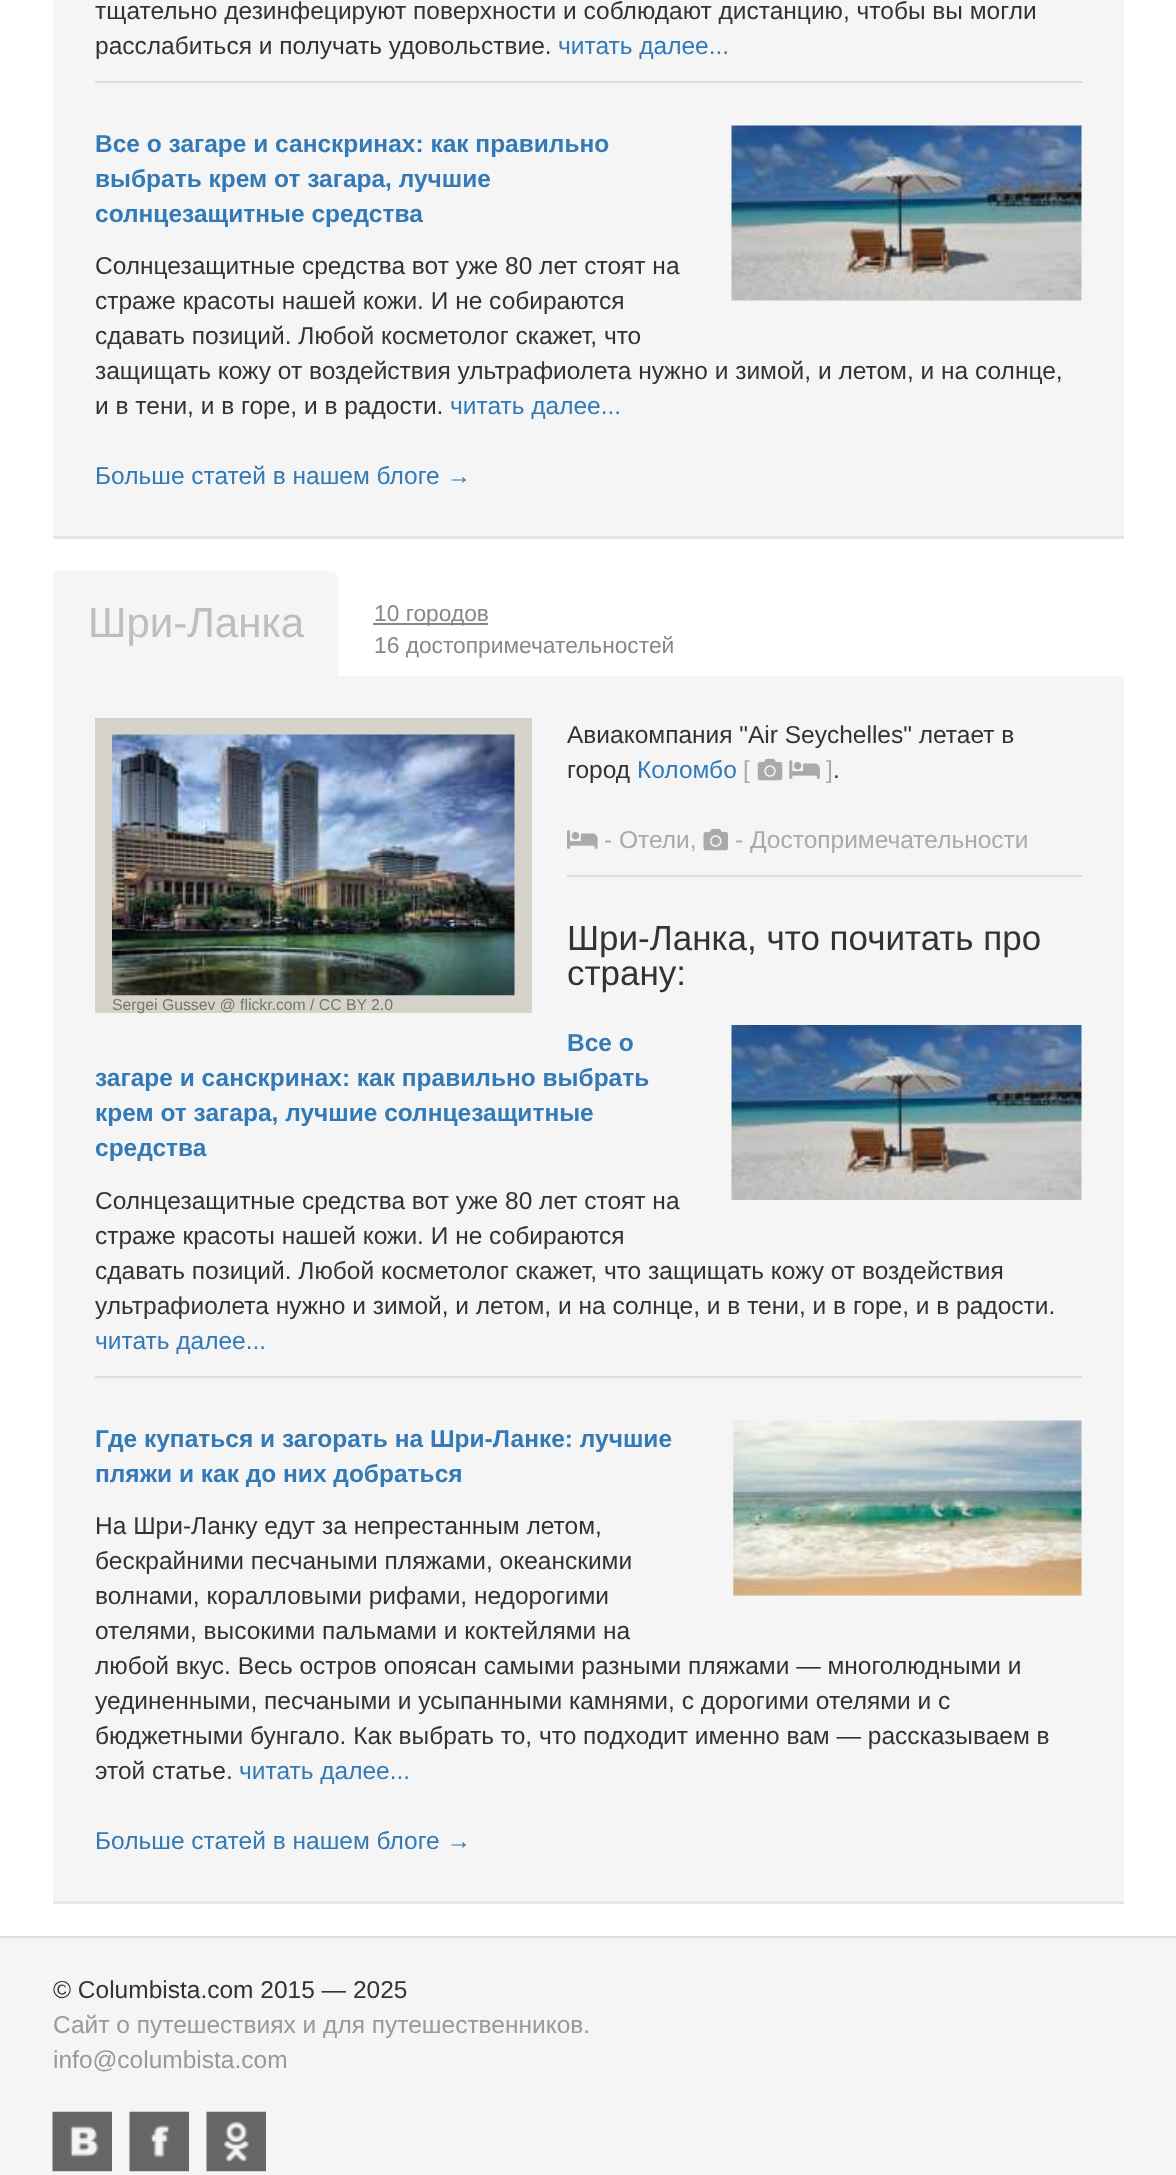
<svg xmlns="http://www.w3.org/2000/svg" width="1176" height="2175">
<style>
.a{font:24.5px Liberation Sans;fill:#333}
.b{font:24.5px Liberation Sans;fill:#337ab7}
.c{font:bold 24.5px Liberation Sans;fill:#337ab7}
.d{font:42px Liberation Sans;fill:#bebebe}
.e{font:22.75px Liberation Sans;fill:#888}
.f{font:24.5px Liberation Sans;fill:#aaa}
.g{font:35px Liberation Sans;fill:#333}
.h{font:15.75px Liberation Sans;fill:#75756e}
.i{font:24.5px Liberation Sans;fill:#999}
</style>
<rect width="100%" height="100%" fill="#fff"/>
<path fill="#e6e6e6" d="M53 536v3h1071v-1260v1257z"/>
<path fill="#f5f5f5" d="M53 0h1071v536H53z"/>
<path fill="#ddd" d="M95 81h987v2H95z"/>
<image href="1.png" x="731" y="125" width="351" height="176"/>
<path fill="#f5f5f5" d="M60 571h271c4 0 7 3 7 7v98h-285v-98c0-4 3-7 7-7z"/>
<path fill="#888" d="M373 623h115v2H373z"/>
<path fill="#e6e6e6" d="M53 1900v4h1071v-1225v1221z"/>
<path fill="#f5f5f5" d="M53 676h1071v1225H53z"/>
<image href="2.png" x="757" y="758" width="26" height="23"/>
<image href="3.png" x="789" y="760" width="31" height="19"/>
<image href="4.png" x="567" y="830" width="31" height="19"/>
<image href="5.png" x="703" y="828" width="25" height="23"/>
<path fill="#ddd" d="M567 875h515v2H567z"/>
<path fill="#d6d4ca" d="M95 718h437v295H95z"/>
<image href="6.png" x="112" y="734" width="403" height="262"/>
<image href="7.png" x="731" y="1025" width="351" height="175"/>
<path fill="#ddd" d="M95 1376h987v2H95z"/>
<image href="8.png" x="733" y="1420" width="349" height="176"/>
<path fill="#f5f5f5" d="M0 1938h1176v237H0z"/>
<path fill="#ddd" d="M0 1936h1176v2H0z"/>
<image href="9.png" x="52" y="2111" width="60" height="61"/>
<image href="10.png" x="129" y="2111" width="60" height="61"/>
<image href="11.png" x="206" y="2111" width="60" height="61"/>
<text class="a" x="95" y="19">тщательно дезинфецируют поверхности и соблюдают дистанцию, чтобы вы могли</text>
<text class="a" x="95" y="54">расслабиться и получать удовольствие.</text>
<text class="b" x="558" y="54">читать далее...</text>
<text class="c" x="95" y="152">Все о загаре и санскринах: как правильно</text>
<text class="c" x="95" y="187">выбрать крем от загара, лучшие</text>
<text class="c" x="95" y="222">солнцезащитные средства</text>
<text class="a" x="95" y="274">Солнцезащитные средства вот уже 80 лет стоят на</text>
<text class="a" x="95" y="309">страже красоты нашей кожи. И не собираются</text>
<text class="a" x="95" y="344">сдавать позиций. Любой косметолог скажет, что</text>
<text class="a" x="95" y="379">защищать кожу от воздействия ультрафиолета нужно и зимой, и летом, и на солнце,</text>
<text class="a" x="95" y="414">и в тени, и в горе, и в радости.</text>
<text class="b" x="450" y="414">читать далее...</text>
<text class="b" x="95" y="484">Больше статей в нашем блоге →</text>
<text class="d" x="88" y="637">Шри-Ланка</text>
<text class="e" x="374" y="621">10 городов</text>
<text class="e" x="374" y="653">16 достопримечательностей</text>
<text class="a" x="567" y="743">Авиакомпания "Air Seychelles" летает в</text>
<text class="a" x="567" y="778">город</text>
<text class="b" x="637" y="778">Коломбо</text>
<text class="f" x="743" y="778">[</text>
<text class="f" x="826" y="778">]</text>
<text class="a" x="833" y="778">.</text>
<text class="f" x="604" y="848">- Отели,</text>
<text class="f" x="735" y="848">- Достопримечательности</text>
<text class="g" x="567" y="950">Шри-Ланка, что почитать про</text>
<text class="g" x="567" y="985">страну:</text>
<text class="h" x="112" y="1010">Sergei Gussev @ flickr.com / CC BY 2.0</text>
<text class="c" x="567" y="1051">Все о</text>
<text class="c" x="95" y="1086">загаре и санскринах: как правильно выбрать</text>
<text class="c" x="95" y="1121">крем от загара, лучшие солнцезащитные</text>
<text class="c" x="95" y="1156">средства</text>
<text class="a" x="95" y="1209">Солнцезащитные средства вот уже 80 лет стоят на</text>
<text class="a" x="95" y="1244">страже красоты нашей кожи. И не собираются</text>
<text class="a" x="95" y="1279">сдавать позиций. Любой косметолог скажет, что защищать кожу от воздействия</text>
<text class="a" x="95" y="1314">ультрафиолета нужно и зимой, и летом, и на солнце, и в тени, и в горе, и в радости.</text>
<text class="b" x="95" y="1349">читать далее...</text>
<text class="c" x="95" y="1447">Где купаться и загорать на Шри-Ланке: лучшие</text>
<text class="c" x="95" y="1482">пляжи и как до них добраться</text>
<text class="a" x="95" y="1534">На Шри-Ланку едут за непрестанным летом,</text>
<text class="a" x="95" y="1569">бескрайними песчаными пляжами, океанскими</text>
<text class="a" x="95" y="1604">волнами, коралловыми рифами, недорогими</text>
<text class="a" x="95" y="1639">отелями, высокими пальмами и коктейлями на</text>
<text class="a" x="95" y="1674">любой вкус. Весь остров опоясан самыми разными пляжами — многолюдными и</text>
<text class="a" x="95" y="1709">уединенными, песчаными и усыпанными камнями, с дорогими отелями и с</text>
<text class="a" x="95" y="1744">бюджетными бунгало. Как выбрать то, что подходит именно вам — рассказываем в</text>
<text class="a" x="95" y="1779">этой статье.</text>
<text class="b" x="239" y="1779">читать далее...</text>
<text class="b" x="95" y="1849">Больше статей в нашем блоге →</text>
<text class="a" x="53" y="1998">© Columbista.com 2015 — 2025</text>
<text class="i" x="53" y="2033">Сайт о путешествиях и для путешественников.</text>
<text class="i" x="53" y="2068">info@columbista.com</text>
</svg>
